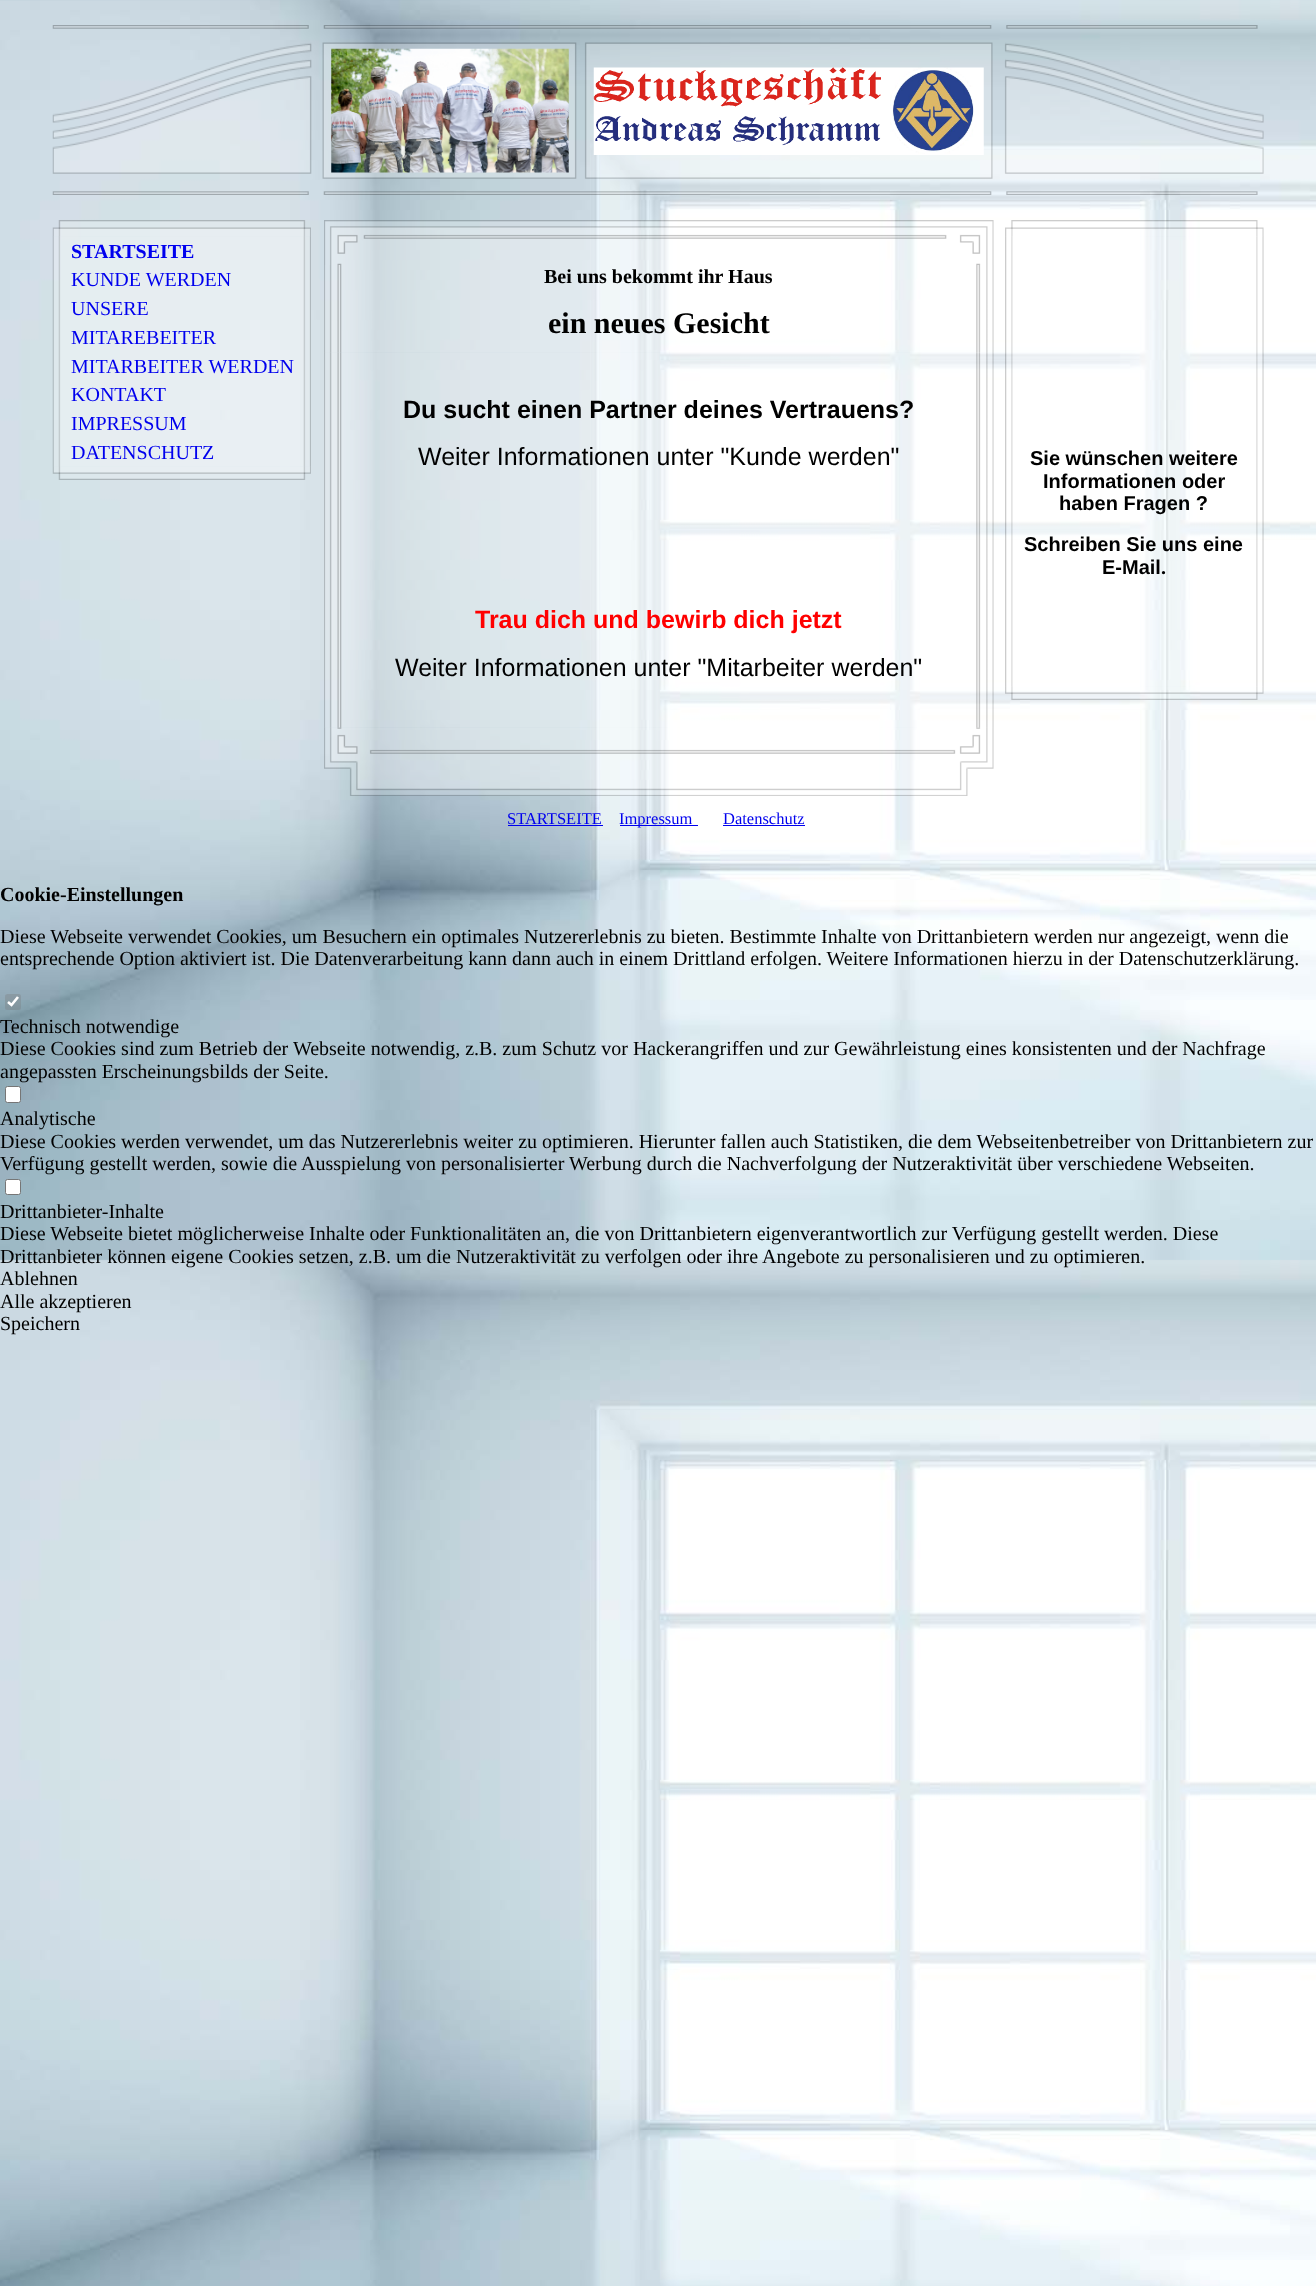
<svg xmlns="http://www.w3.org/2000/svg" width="1316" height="2286">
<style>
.a{font:bold 20px Liberation Serif;fill:#00e}
.b{font:20px Liberation Serif;fill:#00e}
.c{font:bold 20px Liberation Serif;fill:#000}
.d{font:bold 30px Liberation Serif;fill:#000}
.e{font:bold 25px Liberation Sans;fill:#000}
.f{font:25px Liberation Sans;fill:#000}
.g{font:bold 25px Liberation Sans;fill:#f00}
.h{font:bold 20px Liberation Sans;fill:#000}
.i{font:16.5px Liberation Serif;fill:#00e}
.j{font:20px Liberation Serif;fill:#000}
</style>
<rect width="100%" height="100%" fill="#fff"/>
<image href="1.png" x="0" y="0" width="1316" height="2286"/>
<image href="2.png" x="52" y="25" width="1212" height="170"/>
<image href="3.png" x="331" y="48" width="238" height="125"/>
<image href="4.png" x="593" y="67" width="391" height="88"/>
<image href="5.png" x="52" y="220" width="259" height="17"/>
<image href="6.png" x="52" y="236" width="259" height="231"/>
<image href="7.png" x="52" y="466" width="259" height="14"/>
<image href="8.png" x="324" y="220" width="670" height="45"/>
<image href="9.png" x="324" y="265" width="670" height="88"/>
<image href="11.png" x="324" y="727" width="670" height="69"/>
<image href="10.png" x="324" y="352" width="670" height="376"/>
<image href="12.png" x="1005" y="220" width="259" height="17"/>
<image href="13.png" x="1005" y="236" width="259" height="451"/>
<image href="14.png" x="1005" y="686" width="259" height="14"/>
<path fill="#00e" d="M508 825h95v1H508z"/>
<path fill="#00e" d="M620 825h78v1H620z"/>
<path fill="#00e" d="M723 825h82v1H723z"/>
<rect fill="#7676764d" x="5" y="994" width="16" height="16" rx="2.5"/>
<path fill="none" stroke="#fff" stroke-width="2.6" d="M8 1002l3.5 3l6.5-8"/>
<rect fill="#fff" stroke="#767676" x="5.5" y="1086.5" width="15" height="16" rx="2"/>
<rect fill="#fff" stroke="#767676" x="5.5" y="1179.5" width="15" height="15" rx="2"/>
<text class="a" x="71" y="258">STARTSEITE</text>
<text class="b" x="71" y="286">KUNDE WERDEN</text>
<text class="b" x="71" y="315">UNSERE</text>
<text class="b" x="71" y="344">MITAREBEITER</text>
<text class="b" x="71" y="373">MITARBEITER WERDEN</text>
<text class="b" x="71" y="401">KONTAKT</text>
<text class="b" x="71" y="430">IMPRESSUM</text>
<text class="b" x="71" y="459">DATENSCHUTZ</text>
<text class="c" x="544" y="283">Bei uns bekommt ihr Haus</text>
<text class="d" x="548" y="333">ein neues Gesicht</text>
<text class="e" x="403" y="418">Du sucht einen Partner deines Vertrauens?</text>
<text class="f" x="418" y="465">Weiter Informationen unter "Kunde werden"</text>
<text class="g" x="475" y="628">Trau dich und bewirb dich jetzt</text>
<text class="f" x="395" y="676">Weiter Informationen unter "Mitarbeiter werden"</text>
<text class="h" x="1030" y="465">Sie wünschen weitere</text>
<text class="h" x="1043" y="488">Informationen oder</text>
<text class="h" x="1059" y="510">haben Fragen ?</text>
<text class="h" x="1024" y="551">Schreiben Sie uns eine</text>
<text class="h" x="1102" y="574">E-Mail</text>
<text class="c" x="1161" y="574">.</text>
<text class="i" x="507" y="824">STARTSEITE</text>
<text class="i" x="619" y="824">Impressum</text>
<text class="i" x="723" y="824">Datenschutz</text>
<text class="c" x="0" y="901">Cookie-Einstellungen</text>
<text class="j" x="0" y="943">Diese Webseite verwendet Cookies, um Besuchern ein optimales Nutzererlebnis zu bieten. Bestimmte Inhalte von Drittanbietern werden nur angezeigt, wenn die</text>
<text class="j" x="0" y="965">entsprechende Option aktiviert ist. Die Datenverarbeitung kann dann auch in einem Drittland erfolgen. Weitere Informationen hierzu in der Datenschutzerklärung.</text>
<text class="j" x="0" y="1033">Technisch notwendige</text>
<text class="j" x="0" y="1055">Diese Cookies sind zum Betrieb der Webseite notwendig, z.B. zum Schutz vor Hackerangriffen und zur Gewährleistung eines konsistenten und der Nachfrage</text>
<text class="j" x="0" y="1078">angepassten Erscheinungsbilds der Seite.</text>
<text class="j" x="0" y="1125">Analytische</text>
<text class="j" x="0" y="1148">Diese Cookies werden verwendet, um das Nutzererlebnis weiter zu optimieren. Hierunter fallen auch Statistiken, die dem Webseitenbetreiber von Drittanbietern zur</text>
<text class="j" x="0" y="1170">Verfügung gestellt werden, sowie die Ausspielung von personalisierter Werbung durch die Nachverfolgung der Nutzeraktivität über verschiedene Webseiten.</text>
<text class="j" x="0" y="1218">Drittanbieter-Inhalte</text>
<text class="j" x="0" y="1240">Diese Webseite bietet möglicherweise Inhalte oder Funktionalitäten an, die von Drittanbietern eigenverantwortlich zur Verfügung gestellt werden. Diese</text>
<text class="j" x="0" y="1263">Drittanbieter können eigene Cookies setzen, z.B. um die Nutzeraktivität zu verfolgen oder ihre Angebote zu personalisieren und zu optimieren.</text>
<text class="j" x="0" y="1285">Ablehnen</text>
<text class="j" x="0" y="1308">Alle akzeptieren</text>
<text class="j" x="0" y="1330">Speichern</text>
</svg>
